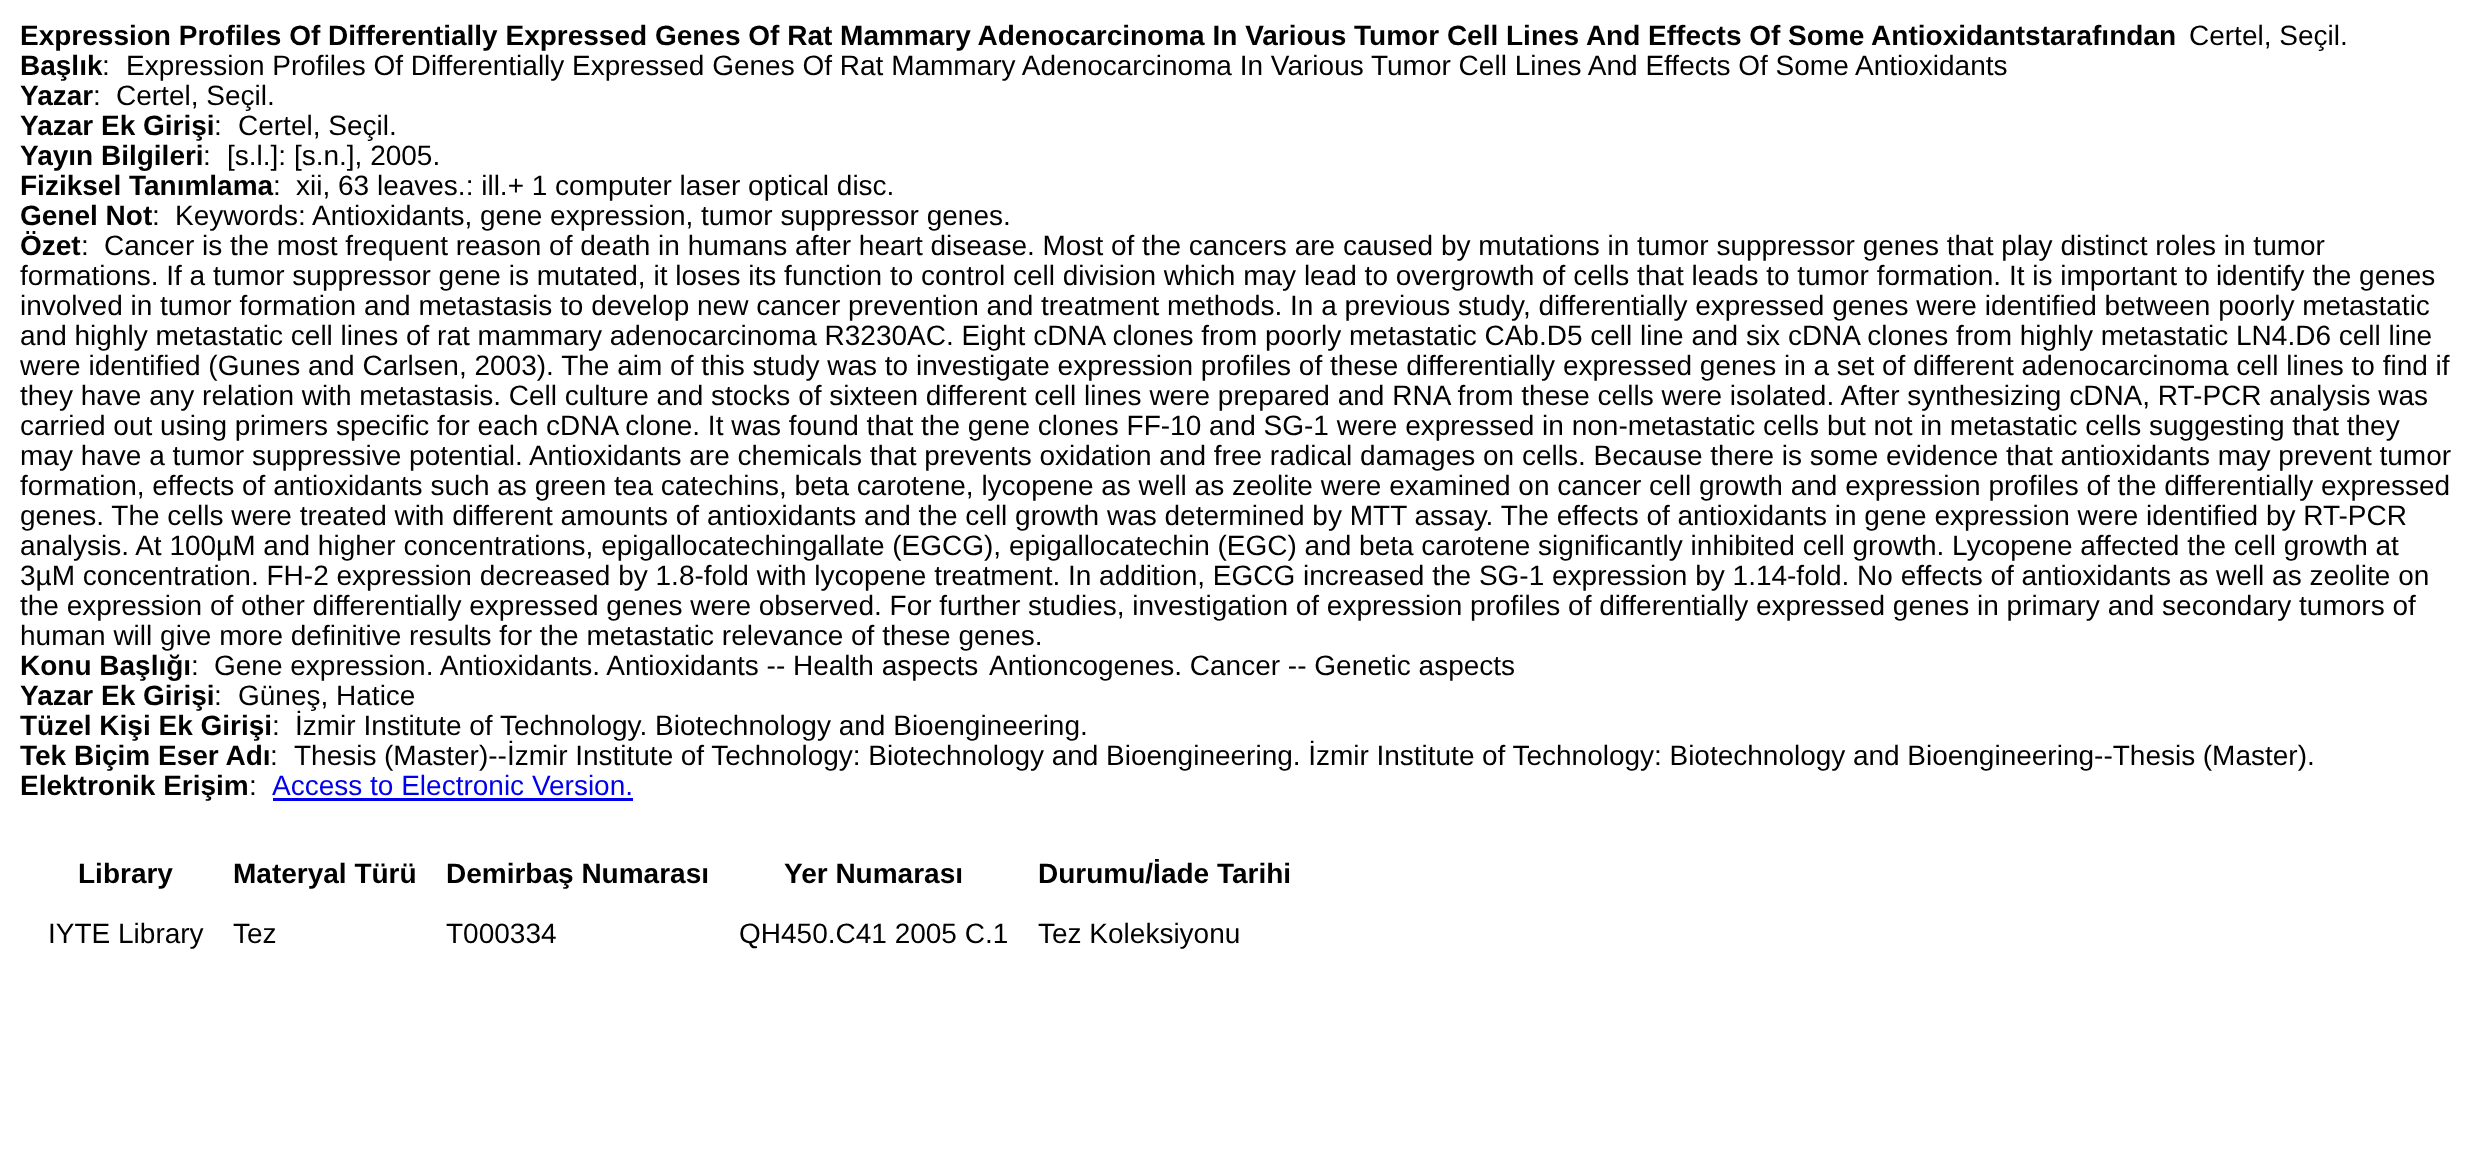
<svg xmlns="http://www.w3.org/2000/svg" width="2473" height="1149">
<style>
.a{font:bold 28px Liberation Sans;fill:#000}
.b{font:28px Liberation Sans;fill:#000}
.c{font:28px Liberation Sans;fill:#00e}
</style>
<rect width="100%" height="100%" fill="#fff"/>
<path fill="#00e" d="M273 798h360v3H273z"/>
<text class="a" x="20" y="45">Expression Profiles Of Differentially Expressed Genes Of Rat Mammary Adenocarcinoma In Various Tumor Cell Lines And Effects Of Some Antioxidantstarafından</text>
<text class="b" x="2189" y="45">Certel, Seçil.</text>
<text class="a" x="20" y="75">Başlık</text>
<text class="b" x="102" y="75">:</text>
<text class="b" x="126" y="75">Expression Profiles Of Differentially Expressed Genes Of Rat Mammary Adenocarcinoma In Various Tumor Cell Lines And Effects Of Some Antioxidants</text>
<text class="a" x="20" y="105">Yazar</text>
<text class="b" x="93" y="105">:</text>
<text class="b" x="116" y="105">Certel, Seçil.</text>
<text class="a" x="20" y="135">Yazar Ek Girişi</text>
<text class="b" x="214" y="135">:</text>
<text class="b" x="238" y="135">Certel, Seçil.</text>
<text class="a" x="20" y="165">Yayın Bilgileri</text>
<text class="b" x="203" y="165">:</text>
<text class="b" x="227" y="165">[s.l.]: [s.n.], 2005.</text>
<text class="a" x="20" y="195">Fiziksel Tanımlama</text>
<text class="b" x="273" y="195">:</text>
<text class="b" x="296" y="195">xii, 63 leaves.: ill.+ 1 computer laser optical disc.</text>
<text class="a" x="20" y="225">Genel Not</text>
<text class="b" x="152" y="225">:</text>
<text class="b" x="175" y="225">Keywords: Antioxidants, gene expression, tumor suppressor genes.</text>
<text class="a" x="20" y="255">Özet</text>
<text class="b" x="81" y="255">:</text>
<text class="b" x="104" y="255">Cancer is the most frequent reason of death in humans after heart disease. Most of the cancers are caused by mutations in tumor suppressor genes that play distinct roles in tumor</text>
<text class="b" x="20" y="285">formations. If a tumor suppressor gene is mutated, it loses its function to control cell division which may lead to overgrowth of cells that leads to tumor formation. It is important to identify the genes</text>
<text class="b" x="20" y="315">involved in tumor formation and metastasis to develop new cancer prevention and treatment methods. In a previous study, differentially expressed genes were identified between poorly metastatic</text>
<text class="b" x="20" y="345">and highly metastatic cell lines of rat mammary adenocarcinoma R3230AC. Eight cDNA clones from poorly metastatic CAb.D5 cell line and six cDNA clones from highly metastatic LN4.D6 cell line</text>
<text class="b" x="20" y="375">were identified (Gunes and Carlsen, 2003). The aim of this study was to investigate expression profiles of these differentially expressed genes in a set of different adenocarcinoma cell lines to find if</text>
<text class="b" x="20" y="405">they have any relation with metastasis. Cell culture and stocks of sixteen different cell lines were prepared and RNA from these cells were isolated. After synthesizing cDNA, RT-PCR analysis was</text>
<text class="b" x="20" y="435">carried out using primers specific for each cDNA clone. It was found that the gene clones FF-10 and SG-1 were expressed in non-metastatic cells but not in metastatic cells suggesting that they</text>
<text class="b" x="20" y="465">may have a tumor suppressive potential. Antioxidants are chemicals that prevents oxidation and free radical damages on cells. Because there is some evidence that antioxidants may prevent tumor</text>
<text class="b" x="20" y="495">formation, effects of antioxidants such as green tea catechins, beta carotene, lycopene as well as zeolite were examined on cancer cell growth and expression profiles of the differentially expressed</text>
<text class="b" x="20" y="525">genes. The cells were treated with different amounts of antioxidants and the cell growth was determined by MTT assay. The effects of antioxidants in gene expression were identified by RT-PCR</text>
<text class="b" x="20" y="555">analysis. At 100µM and higher concentrations, epigallocatechingallate (EGCG), epigallocatechin (EGC) and beta carotene significantly inhibited cell growth. Lycopene affected the cell growth at</text>
<text class="b" x="20" y="585">3µM concentration. FH-2 expression decreased by 1.8-fold with lycopene treatment. In addition, EGCG increased the SG-1 expression by 1.14-fold. No effects of antioxidants as well as zeolite on</text>
<text class="b" x="20" y="615">the expression of other differentially expressed genes were observed. For further studies, investigation of expression profiles of differentially expressed genes in primary and secondary tumors of</text>
<text class="b" x="20" y="645">human will give more definitive results for the metastatic relevance of these genes.</text>
<text class="a" x="20" y="675">Konu Başlığı</text>
<text class="b" x="191" y="675">:</text>
<text class="b" x="214" y="675">Gene expression. Antioxidants. Antioxidants -- Health aspects</text>
<text class="b" x="989" y="675">Antioncogenes. Cancer -- Genetic aspects</text>
<text class="a" x="20" y="705">Yazar Ek Girişi</text>
<text class="b" x="214" y="705">:</text>
<text class="b" x="238" y="705">Güneş, Hatice</text>
<text class="a" x="20" y="735">Tüzel Kişi Ek Girişi</text>
<text class="b" x="272" y="735">:</text>
<text class="b" x="295" y="735">İzmir Institute of Technology. Biotechnology and Bioengineering.</text>
<text class="a" x="20" y="765">Tek Biçim Eser Adı</text>
<text class="b" x="270" y="765">:</text>
<text class="b" x="294" y="765" word-spacing="-0.2">Thesis (Master)--İzmir Institute of Technology: Biotechnology and Bioengineering. İzmir Institute of Technology: Biotechnology and Bioengineering--Thesis (Master).</text>
<text class="a" x="20" y="795">Elektronik Erişim</text>
<text class="b" x="249" y="795">:</text>
<text class="c" x="272" y="795">Access to Electronic Version.</text>
<text class="a" x="78" y="883">Library</text>
<text class="a" x="233" y="883">Materyal Türü</text>
<text class="a" x="446" y="883">Demirbaş Numarası</text>
<text class="a" x="784" y="883">Yer Numarası</text>
<text class="a" x="1038" y="883">Durumu/İade Tarihi</text>
<text class="b" x="48" y="943">IYTE Library</text>
<text class="b" x="233" y="943">Tez</text>
<text class="b" x="446" y="943">T000334</text>
<text class="b" x="739" y="943">QH450.C41 2005 C.1</text>
<text class="b" x="1038" y="943">Tez Koleksiyonu</text>
</svg>
